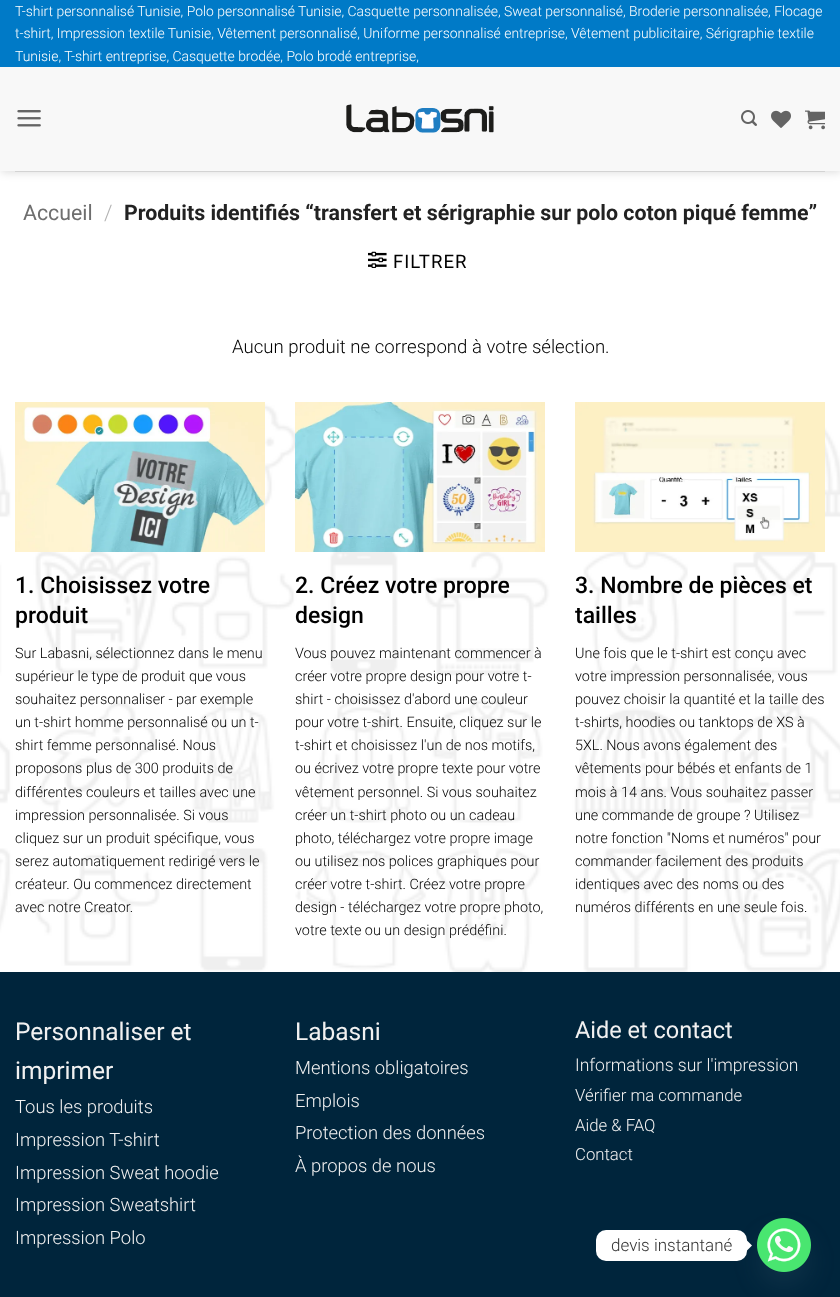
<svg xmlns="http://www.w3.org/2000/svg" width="840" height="1297">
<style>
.a{font:300 13.92px Roboto;fill:#fff}
.b{font:21.35px Roboto;fill:#6e6e6e}
.c{font:300 21.35px Roboto;fill:#b2b2b2}
.d{font:bold 21.35px Roboto;fill:#222}
.e{font:18.6px Roboto;letter-spacing:1px;fill:#000}
.f{font:300 18.6px Roboto;fill:#000}
.g{font:500 23px Roboto;fill:#000}
.h{font:300 14.4px Roboto;fill:#000}
.i{font:24.5px Roboto;fill:#f1f1f1}
.j{font:300 18.4px Roboto;fill:#f1f1f1}
.k{font:23.5px Roboto;fill:#f1f1f1}
.l{font:300 17.5px Roboto;fill:#f1f1f1}
.m{font:300 16.75px Roboto;fill:#f1f1f1}
.n{font:300 17px Roboto;fill:#333}
</style>
<rect width="100%" height="100%" fill="#fff"/>
<path fill="#00000026" filter="blur(5px)" d="M1 1h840v171H1z"/>
<path fill="#007ac7" d="M0 0h840v67H0z"/>
<path fill="#f8f8f8" d="M0 67h840v104H0z"/>
<image href="1.png" x="17" y="110" width="24" height="17"/>
<image href="2.png" x="346" y="104" width="148" height="29"/>
<image href="3.png" x="741" y="110" width="16" height="16"/>
<image href="4.png" x="771" y="110" width="20" height="18"/>
<image href="5.png" x="805" y="110" width="20" height="20"/>
<path fill="#d3d3d3" d="M15 171h810v1H15z"/>
<image href="6.png" x="368" y="251" width="19" height="17"/>
<image href="7.png" x="0" y="402" width="840" height="570"/>
<image href="8.png" x="15" y="402" width="250" height="150"/>
<image href="9.png" x="295" y="402" width="250" height="150"/>
<image href="10.png" x="575" y="402" width="250" height="150"/>
<path fill="#00253c" d="M0 972h840v325H0z"/>
<rect fill="#49687e29" filter="blur(12px)" x="757" y="1234" width="54" height="54" rx="27"/>
<rect fill="#fff" x="596" y="1230" width="151" height="31" rx="10"/>
<path fill="#fff" d="M747 1250.5v-10l5 5z"/>
<image href="11.png" x="757" y="1218" width="54" height="54"/>
<text class="a" x="15" y="16">T-shirt personnalisé Tunisie, Polo personnalisé Tunisie, Casquette personnalisée, Sweat personnalisé, Broderie personnalisée, Flocage</text>
<text class="a" x="15" y="38">t-shirt, Impression textile Tunisie, Vêtement personnalisé, Uniforme personnalisé entreprise, Vêtement publicitaire, Sérigraphie textile</text>
<text class="a" x="15" y="61">Tunisie, T-shirt entreprise, Casquette brodée, Polo brodé entreprise,</text>
<text class="b" x="23" y="220">Accueil</text>
<text class="c" x="104" y="220">/</text>
<text class="d" x="124" y="220">Produits identifiés “transfert et sérigraphie sur polo coton piqué femme”</text>
<text class="e" x="393" y="268">FILTRER</text>
<text class="f" x="232" y="353">Aucun produit ne correspond à votre sélection.</text>
<text class="g" x="15" y="593">1. Choisissez votre</text>
<text class="g" x="15" y="623">produit</text>
<text class="h" x="15" y="658">Sur Labasni, sélectionnez dans le menu</text>
<text class="h" x="15" y="681">supérieur le type de produit que vous</text>
<text class="h" x="15" y="704">souhaitez personnaliser - par exemple</text>
<text class="h" x="15" y="727">un t-shirt homme personnalisé ou un t-</text>
<text class="h" x="15" y="750">shirt femme personnalisé. Nous</text>
<text class="h" x="15" y="773">proposons plus de 300 produits de</text>
<text class="h" x="15" y="797">différentes couleurs et tailles avec une</text>
<text class="h" x="15" y="820">impression personnalisée. Si vous</text>
<text class="h" x="15" y="843">cliquez sur un produit spécifique, vous</text>
<text class="h" x="15" y="866">serez automatiquement redirigé vers le</text>
<text class="h" x="15" y="889">créateur. Ou commencez directement</text>
<text class="h" x="15" y="912">avec notre Creator.</text>
<text class="g" x="295" y="593">2. Créez votre propre</text>
<text class="g" x="295" y="623">design</text>
<text class="h" x="295" y="658">Vous pouvez maintenant commencer à</text>
<text class="h" x="295" y="681">créer votre propre design pour votre t-</text>
<text class="h" x="295" y="704">shirt - choisissez d'abord une couleur</text>
<text class="h" x="295" y="727">pour votre t-shirt. Ensuite, cliquez sur le</text>
<text class="h" x="295" y="750">t-shirt et choisissez l'un de nos motifs,</text>
<text class="h" x="295" y="773">ou écrivez votre propre texte pour votre</text>
<text class="h" x="295" y="797">vêtement personnel. Si vous souhaitez</text>
<text class="h" x="295" y="820">créer un t-shirt photo ou un cadeau</text>
<text class="h" x="295" y="843">photo, téléchargez votre propre image</text>
<text class="h" x="295" y="866">ou utilisez nos polices graphiques pour</text>
<text class="h" x="295" y="889">créer votre t-shirt. Créez votre propre</text>
<text class="h" x="295" y="912">design - téléchargez votre propre photo,</text>
<text class="h" x="295" y="935">votre texte ou un design prédéfini.</text>
<text class="g" x="575" y="593">3. Nombre de pièces et</text>
<text class="g" x="575" y="623">tailles</text>
<text class="h" x="575" y="658">Une fois que le t-shirt est conçu avec</text>
<text class="h" x="575" y="681">votre impression personnalisée, vous</text>
<text class="h" x="575" y="704">pouvez choisir la quantité et la taille des</text>
<text class="h" x="575" y="727">t-shirts, hoodies ou tanktops de XS à</text>
<text class="h" x="575" y="750">5XL. Nous avons également des</text>
<text class="h" x="575" y="773">vêtements pour bébés et enfants de 1</text>
<text class="h" x="575" y="797">mois à 14 ans. Vous souhaitez passer</text>
<text class="h" x="575" y="820">une commande de groupe ? Utilisez</text>
<text class="h" x="575" y="843">notre fonction "Noms et numéros" pour</text>
<text class="h" x="575" y="866">commander facilement des produits</text>
<text class="h" x="575" y="889">identiques avec des noms ou des</text>
<text class="h" x="575" y="912">numéros différents en une seule fois.</text>
<text class="i" x="15" y="1040">Personnaliser et</text>
<text class="i" x="15" y="1079">imprimer</text>
<text class="j" x="15" y="1113">Tous les produits</text>
<text class="j" x="15" y="1146">Impression T-shirt</text>
<text class="j" x="15" y="1179">Impression Sweat hoodie</text>
<text class="j" x="15" y="1211">Impression Sweatshirt</text>
<text class="j" x="15" y="1244">Impression Polo</text>
<text class="i" x="295" y="1040">Labasni</text>
<text class="j" x="295" y="1074">Mentions obligatoires</text>
<text class="j" x="295" y="1107">Emplois</text>
<text class="j" x="295" y="1139">Protection des données</text>
<text class="j" x="295" y="1172">À propos de nous</text>
<text class="k" x="575" y="1038">Aide et contact</text>
<text class="l" x="575" y="1071">Informations sur l'impression</text>
<text class="m" x="575" y="1101">Vérifier ma commande</text>
<text class="m" x="575" y="1131">Aide &amp; FAQ</text>
<text class="m" x="575" y="1160">Contact</text>
<text class="n" x="611" y="1251">devis instantané</text>
</svg>
